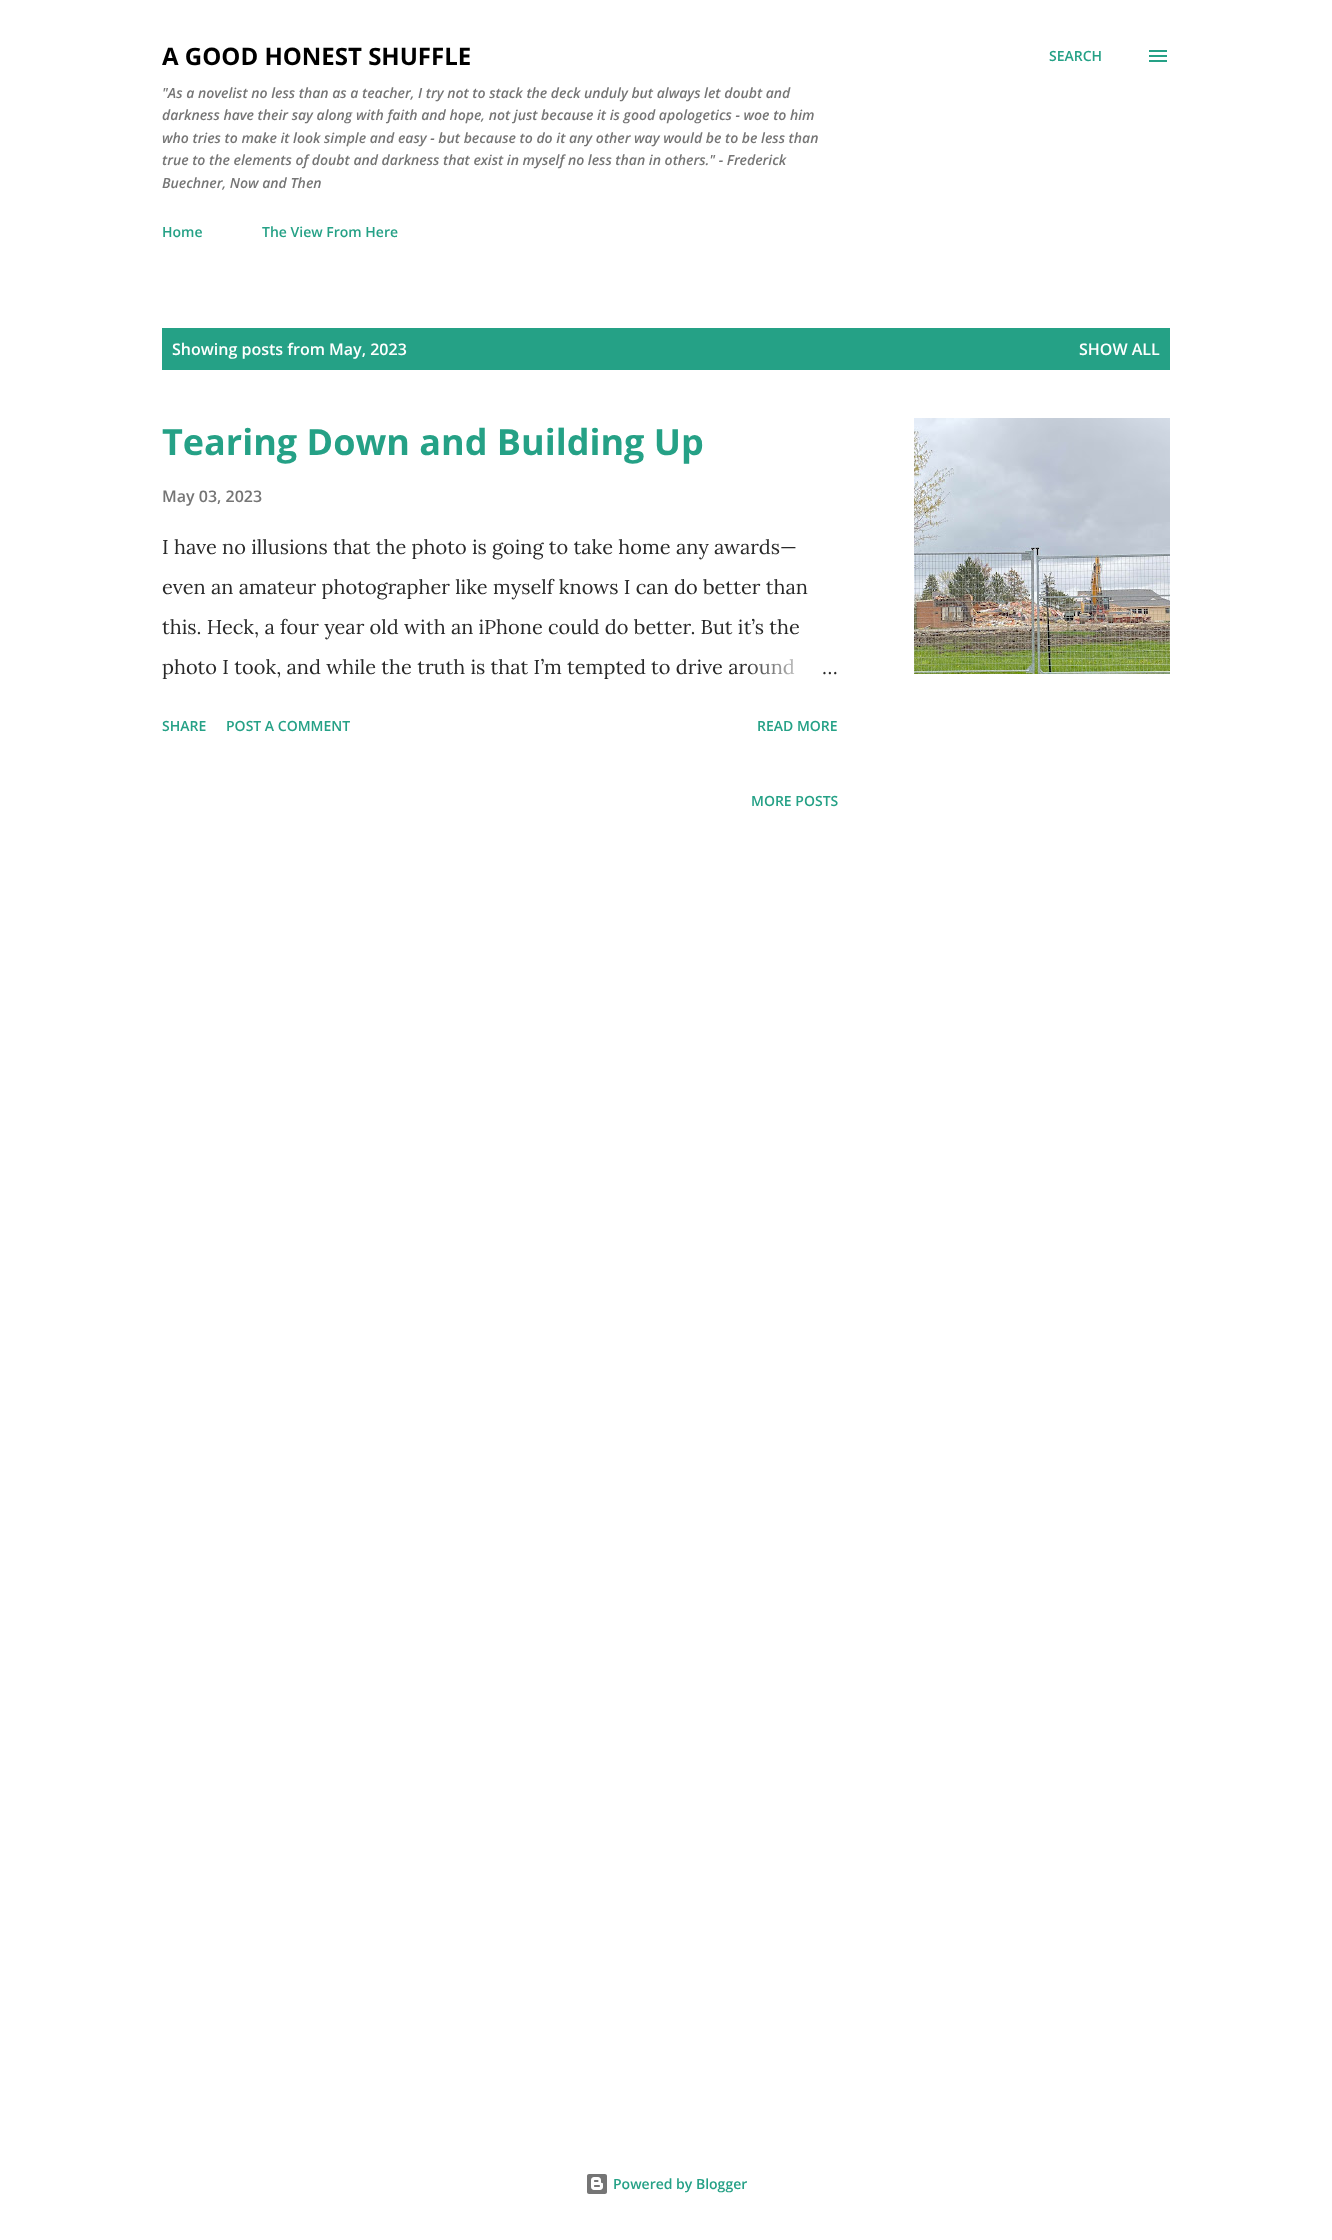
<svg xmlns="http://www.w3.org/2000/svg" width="1332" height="2240">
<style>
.a{font:bold 24px Open Sans;fill:#000}
.b{font:italic 600 14px Open Sans;fill:#757575}
.c{font:600 14px Open Sans;fill:#25a186}
.d{font:600 16px Open Sans;fill:#fff}
.e{font:bold 36px Open Sans;fill:#25a186}
.f{font:600 16px Open Sans;fill:#757575}
.g{font:20px Lora;fill:#292929}
</style>
<defs>
<linearGradient id="g1" gradientUnits="userSpaceOnUse" x1="838" y1="667" x2="742" y2="667"><stop offset="0" stop-color="#fff"/><stop offset="0.2" stop-color="#fff"/><stop offset="1" stop-color="#fff" stop-opacity="0"/></linearGradient>
</defs>
<rect width="100%" height="100%" fill="#fff"/>
<image href="1.png" x="1149" y="50" width="18" height="12"/>
<path fill="#25a186" d="M162 328h1008v42H162z"/>
<image href="2.png" x="914" y="418" width="256" height="256"/>
<image href="3.png" x="587" y="2174" width="20" height="20"/>
<text class="a" x="162" y="65">A GOOD HONEST SHUFFLE</text>
<text class="b" x="162" y="98">"As a novelist no less than as a teacher, I try not to stack the deck unduly but always let doubt and</text>
<text class="b" x="162" y="120">darkness have their say along with faith and hope, not just because it is good apologetics - woe to him</text>
<text class="b" x="162" y="143">who tries to make it look simple and easy - but because to do it any other way would be to be less than</text>
<text class="b" x="162" y="165">true to the elements of doubt and darkness that exist in myself no less than in others." - Frederick</text>
<text class="b" x="162" y="188">Buechner, Now and Then</text>
<text class="c" x="1049" y="61">SEARCH</text>
<text class="c" x="162" y="237">Home</text>
<text class="c" x="262" y="237">The View From Here</text>
<text class="d" x="172" y="355">Showing posts from May, 2023</text>
<text class="d" x="1079" y="355">SHOW ALL</text>
<text class="e" x="162" y="455">Tearing Down and Building Up</text>
<text class="f" x="162" y="502">May 03, 2023</text>
<text class="g" x="162" y="554">I have no illusions that the photo is going to take home any awards—</text>
<text class="g" x="162" y="594">even an amateur photographer like myself knows I can do better than</text>
<text class="g" x="162" y="634">this. Heck, a four year old with an iPhone could do better. But it’s the</text>
<text class="g" x="162" y="674">photo I took, and while the truth is that I’m tempted to drive around</text>
<path fill="url(#g1)" d="M744 658h51v17H744z"/>
<text class="g" x="822" y="674">…</text>
<text class="c" x="162" y="731">SHARE</text>
<text class="c" x="226" y="731">POST A COMMENT</text>
<text class="c" x="757" y="731">READ MORE</text>
<text class="c" x="751" y="806">MORE POSTS</text>
<text class="c" x="613" y="2189">Powered by Blogger</text>
</svg>
